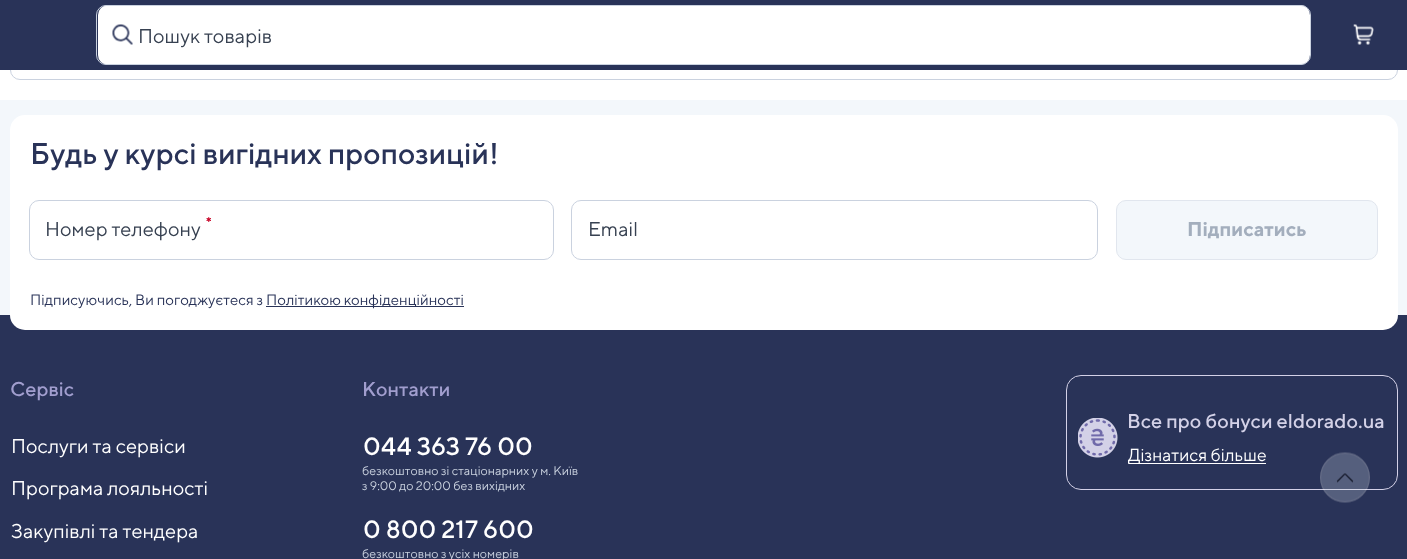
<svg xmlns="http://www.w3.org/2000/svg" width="1407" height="559">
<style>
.a{font:20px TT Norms;fill:#374151}
.b{font:500 30px TT Norms;fill:#293358}
.c{font:bold 20px TT Norms;fill:#a3aebd}
.d{font:15px TT Norms;fill:#293358}
.e{font:500 20px TT Norms;fill:#a19ece}
.f{font:20px TT Norms;fill:#fff}
.g{font:500 25px TT Norms;fill:#fff}
.h{font:12.5px TT Norms;fill:#cad2df}
.i{font:500 20px TT Norms;fill:#d3d1e7}
.j{font:17.5px TT Norms;fill:#fff}
</style>
<rect width="100%" height="100%" fill="#293358"/>
<path fill="#fff" d="M0 70h1398v30H0z"/>
<rect fill="none" stroke="#cad2df" x="10.5" y="40.5" width="1387" height="39" rx="9.5"/>
<path fill="#293358" d="M10 40h1388v30H10z"/>
<rect fill="#fff" x="98" y="5" width="1212" height="60" rx="10"/>
<rect fill="none" stroke="#cad2df" x="96.5" y="5.5" width="1214" height="59" rx="9.5"/>
<image href="1.png" x="112" y="24" width="21" height="21"/>
<image href="2.png" x="1353" y="24" width="21" height="21"/>
<path fill="#f3f7fb" d="M0 100h1407v215H0z"/>
<path fill="#fff" d="M1398 70h9v30H1398z"/>
<rect fill="#fff" x="10" y="115" width="1388" height="215" rx="15"/>
<rect fill="none" stroke="#cad2df" x="29.5" y="200.5" width="524" height="59" rx="9.5"/>
<image href="3.png" x="206" y="217" width="5" height="5"/>
<rect fill="none" stroke="#cad2df" x="571.5" y="200.5" width="526" height="59" rx="9.5"/>
<rect fill="#f3f7fb" stroke="#e1e6ee" x="1116.5" y="200.5" width="261" height="59" rx="9.5"/>
<path fill="#293358" d="M266 306h198v1H266z"/>
<rect fill="none" stroke="#d3d1e7" x="1066.5" y="375.5" width="331" height="114" rx="14.5"/>
<image href="4.png" x="1078" y="418" width="40" height="40"/>
<path fill="#fff" d="M1129 463h137v1H1129z"/>
<image href="5.png" x="1320" y="452" width="50" height="51"/>
<text class="a" x="138" y="43">Пошук товарів</text>
<text class="b" x="30" y="164">Будь у курсі вигідних пропозицій!</text>
<text class="a" x="45" y="236">Номер телефону</text>
<text class="a" x="588" y="236">Email</text>
<text class="c" x="1187" y="236">Підписатись</text>
<text class="d" x="30" y="305">Підписуючись, Ви погоджуєтеся з</text>
<text class="d" x="266" y="305">Політикою конфіденційності</text>
<text class="e" x="10" y="396">Сервіс</text>
<text class="f" x="11" y="453">Послуги та сервіси</text>
<text class="f" x="11" y="495">Програма лояльності</text>
<text class="f" x="11" y="538">Закупівлі та тендера</text>
<text class="e" x="362" y="396">Контакти</text>
<text class="g" x="363" y="455">044 363 76 00</text>
<text class="h" x="362" y="475">безкоштовно зі стаціонарних у м. Київ</text>
<text class="h" x="362" y="490">з 9:00 до 20:00 без вихідних</text>
<text class="g" x="363" y="538">0 800 217 600</text>
<text class="h" x="362" y="558">безкоштовно з усіх номерів</text>
<text class="i" x="1127" y="428">Все про бонуси eldorado.ua</text>
<text class="j" x="1128" y="461">Дізнатися більше</text>
</svg>
